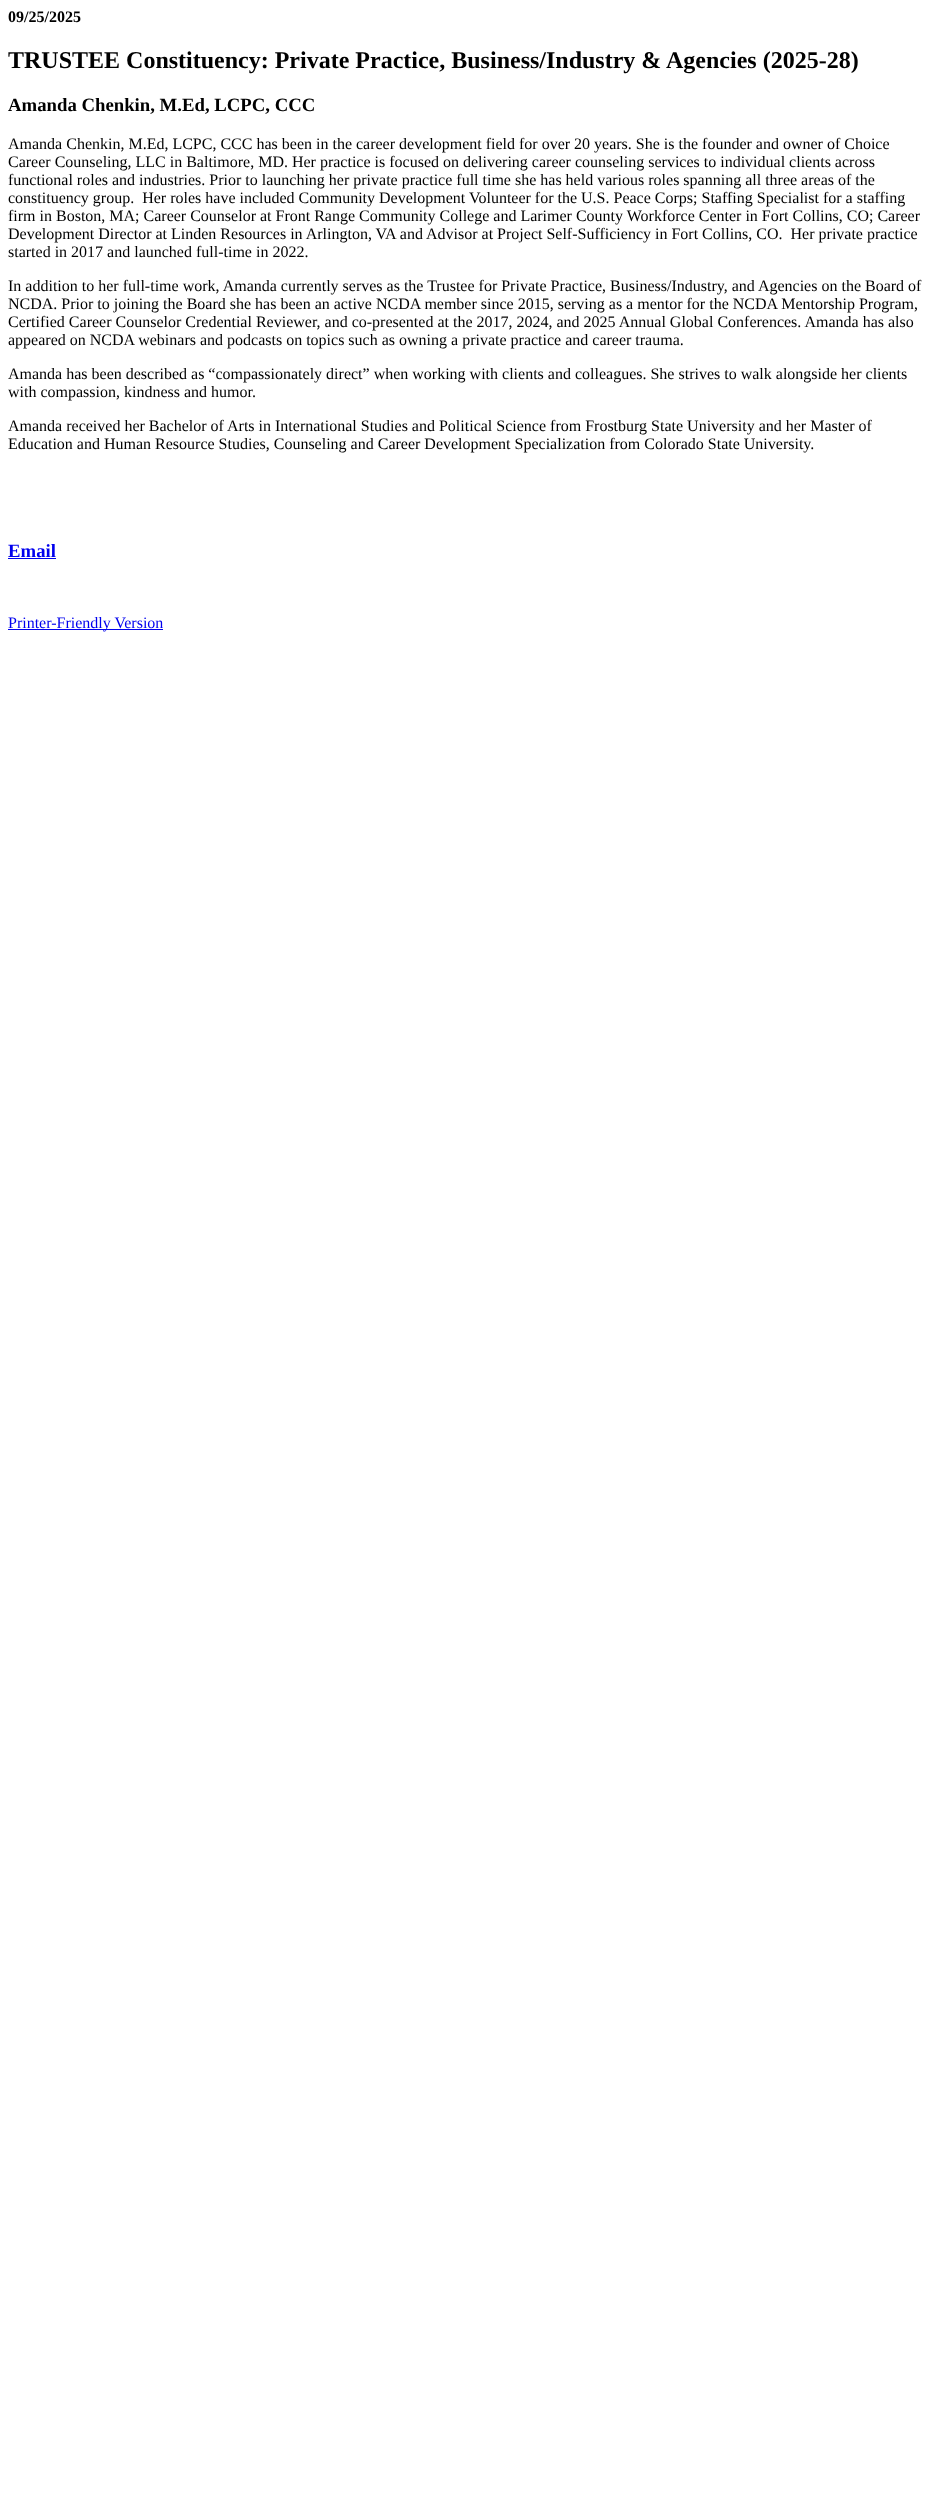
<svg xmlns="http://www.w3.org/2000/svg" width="942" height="2499">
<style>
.a{font:bold 16px Liberation Serif;fill:#000}
.b{font:bold 24px Liberation Serif;fill:#000}
.c{font:bold 18.75px Liberation Serif;fill:#000}
.d{font:16px Liberation Serif;fill:#000}
.e{font:bold 18.75px Liberation Serif;fill:#00e}
.f{font:16px Liberation Serif;fill:#00e}
</style>
<rect width="100%" height="100%" fill="#fff"/>
<path fill="#00e" d="M8 558h48v1H8z"/>
<path fill="#00e" d="M8 629h155v1H8z"/>
<text class="a" x="8" y="22">09/25/2025</text>
<text class="b" x="8" y="68">TRUSTEE Constituency: Private Practice, Business/Industry &amp; Agencies (2025-28)</text>
<text class="c" x="8" y="111">Amanda Chenkin, M.Ed, LCPC, CCC</text>
<text class="d" x="8" y="149">Amanda Chenkin, M.Ed, LCPC, CCC has been in the career development field for over 20 years. She is the founder and owner of Choice</text>
<text class="d" x="8" y="167">Career Counseling, LLC in Baltimore, MD. Her practice is focused on delivering career counseling services to individual clients across</text>
<text class="d" x="8" y="185">functional roles and industries. Prior to launching her private practice full time she has held various roles spanning all three areas of the</text>
<text class="d" xml:space="preserve" x="8" y="203">constituency group.  Her roles have included Community Development Volunteer for the U.S. Peace Corps; Staffing Specialist for a staffing</text>
<text class="d" x="8" y="221">firm in Boston, MA; Career Counselor at Front Range Community College and Larimer County Workforce Center in Fort Collins, CO; Career</text>
<text class="d" xml:space="preserve" x="8" y="239">Development Director at Linden Resources in Arlington, VA and Advisor at Project Self-Sufficiency in Fort Collins, CO.  Her private practice</text>
<text class="d" x="8" y="257">started in 2017 and launched full-time in 2022.</text>
<text class="d" x="8" y="291">In addition to her full-time work, Amanda currently serves as the Trustee for Private Practice, Business/Industry, and Agencies on the Board of</text>
<text class="d" x="8" y="309">NCDA. Prior to joining the Board she has been an active NCDA member since 2015, serving as a mentor for the NCDA Mentorship Program,</text>
<text class="d" x="8" y="327">Certified Career Counselor Credential Reviewer, and co-presented at the 2017, 2024, and 2025 Annual Global Conferences. Amanda has also</text>
<text class="d" x="8" y="345">appeared on NCDA webinars and podcasts on topics such as owning a private practice and career trauma.</text>
<text class="d" x="8" y="379">Amanda has been described as “compassionately direct” when working with clients and colleagues. She strives to walk alongside her clients</text>
<text class="d" x="8" y="397">with compassion, kindness and humor.</text>
<text class="d" x="8" y="431">Amanda received her Bachelor of Arts in International Studies and Political Science from Frostburg State University and her Master of</text>
<text class="d" x="8" y="449">Education and Human Resource Studies, Counseling and Career Development Specialization from Colorado State University.</text>
<text class="e" x="8" y="557">Email</text>
<text class="f" x="8" y="628">Printer-Friendly Version</text>
</svg>
